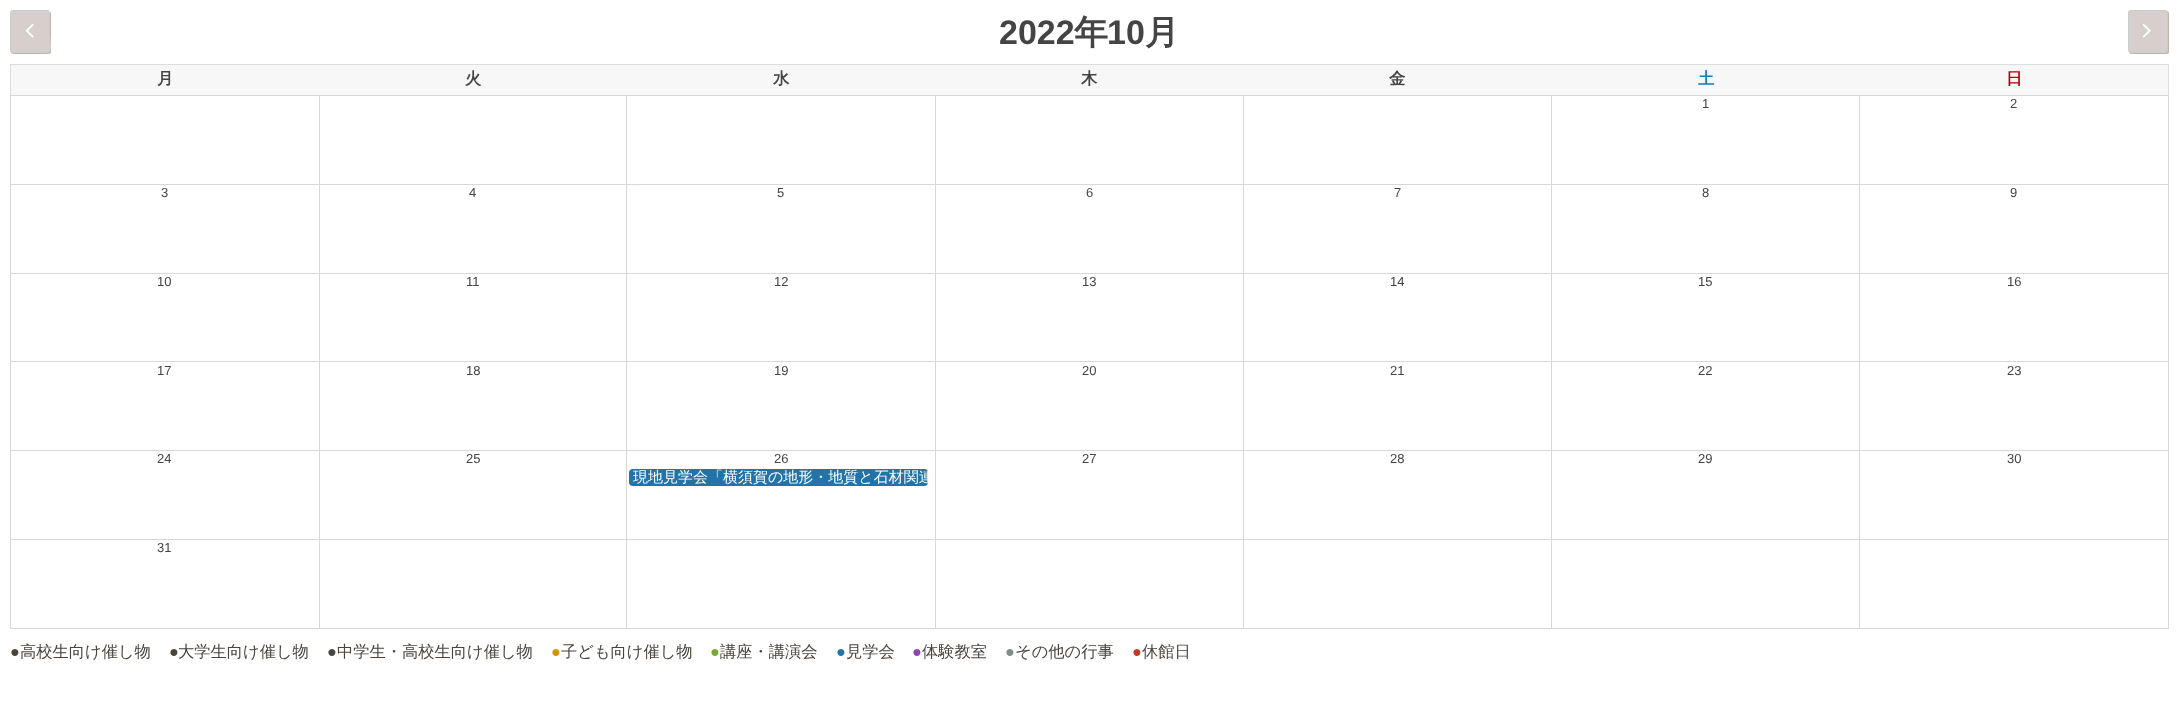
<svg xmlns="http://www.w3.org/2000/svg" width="2178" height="720">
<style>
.a{font:bold 34px Liberation Sans;fill:#444}
.b{font:bold 34px WenQuanYi Zen Hei;fill:#444}
.c{font:bold 16.25px WenQuanYi Zen Hei;fill:#444}
.d{font:bold 16.25px WenQuanYi Zen Hei;fill:#0a80bf}
.e{font:bold 16.25px WenQuanYi Zen Hei;fill:#b20000}
.f{font:13px Liberation Sans;fill:#444}
.g{font:500 15px WenQuanYi Zen Hei;fill:#fff}
.h{font:16.25px Liberation Sans;fill:#4a433e}
.i{font:500 16.25px WenQuanYi Zen Hei;fill:#4a433e}
.j{font:16.25px Liberation Sans;fill:#d49308}
.k{font:16.25px Liberation Sans;fill:#7ba633}
.l{font:16.25px Liberation Sans;fill:#2273a8}
.m{font:16.25px Liberation Sans;fill:#8e44ad}
.n{font:16.25px Liberation Sans;fill:#7f8c8d}
.o{font:16.25px Liberation Sans;fill:#c0392b}
</style>
<defs>
<clipPath id="clip1"><rect x="629" y="469" width="299" height="17" rx="4"/></clipPath>
</defs>
<rect width="100%" height="100%" fill="#fff"/>
<path fill="#c0b5b0" d="M11 52c0 1 1 2 3 2h34c2 0 3-1 3-2v-38c0-1-1-2-1-3v20c0 26 5 21-20 21c-3 0-17 1-19 0z"/>
<rect fill="#d6cfcb" stroke="#ccc" x="10.5" y="10.5" width="39" height="42" rx="2"/>
<image href="1.png" x="25" y="23" width="9" height="15"/>
<path fill="#c0b5b0" d="M2129 52c0 1 1 2 3 2h34c2 0 3-1 3-2v-38c0-2-1-3-2-3c1 2 1 17 1 20v13c0 12-1 8-15 8z"/>
<rect fill="#d6cfcb" stroke="#ccc" x="2128.5" y="10.5" width="39" height="42" rx="2"/>
<image href="2.png" x="2142" y="23" width="9" height="15"/>
<path fill="#ddd" d="M10 64h2159v1H10z"/>
<path fill="#ddd" d="M2168 64h1v31H2168z"/>
<path fill="#ddd" d="M10 64h1v31H10z"/>
<path fill="#f7f7f7" d="M11 65h2157v30H11z"/>
<path fill="#dbd6d8" d="M1859 95h310v1H1859z"/>
<path fill="#dbd6d8" d="M1859 184h310v1H1859z"/>
<path fill="#dbd6d8" d="M1859 273h310v1H1859z"/>
<path fill="#dbd6d8" d="M1859 361h310v1H1859z"/>
<path fill="#dbd6d8" d="M1859 450h310v1H1859z"/>
<path fill="#dbd6d8" d="M1859 539h310v1H1859z"/>
<path fill="#dbd6d8" d="M2168 539h1v90H2168z"/>
<path fill="#dbd6d8" d="M1859 628h310v1H1859z"/>
<path fill="#dbd6d8" d="M1859 539h1v90H1859z"/>
<path fill="#dbd6d8" d="M1551 539h309v1H1551z"/>
<path fill="#dbd6d8" d="M1859 450h1v90H1859z"/>
<path fill="#dbd6d8" d="M1551 450h309v1H1551z"/>
<path fill="#dbd6d8" d="M1859 361h1v90H1859z"/>
<path fill="#dbd6d8" d="M1551 361h309v1H1551z"/>
<path fill="#dbd6d8" d="M1859 273h1v90H1859z"/>
<path fill="#dbd6d8" d="M1551 273h309v1H1551z"/>
<path fill="#dbd6d8" d="M1859 184h1v90H1859z"/>
<path fill="#dbd6d8" d="M1551 184h309v1H1551z"/>
<path fill="#dbd6d8" d="M1859 95h1v90H1859z"/>
<path fill="#dbd6d8" d="M1551 95h309v1H1551z"/>
<path fill="#dbd6d8" d="M1551 628h309v1H1551z"/>
<path fill="#dbd6d8" d="M1551 539h1v90H1551z"/>
<path fill="#dbd6d8" d="M1243 539h310v1H1243z"/>
<path fill="#dbd6d8" d="M1551 450h1v90H1551z"/>
<path fill="#dbd6d8" d="M1243 450h310v1H1243z"/>
<path fill="#dbd6d8" d="M1551 361h1v90H1551z"/>
<path fill="#dbd6d8" d="M1243 361h310v1H1243z"/>
<path fill="#dbd6d8" d="M1551 273h1v90H1551z"/>
<path fill="#dbd6d8" d="M1243 273h310v1H1243z"/>
<path fill="#dbd6d8" d="M1551 184h1v90H1551z"/>
<path fill="#dbd6d8" d="M1243 184h310v1H1243z"/>
<path fill="#dbd6d8" d="M1551 95h1v90H1551z"/>
<path fill="#dbd6d8" d="M1243 95h310v1H1243z"/>
<path fill="#dbd6d8" d="M1243 628h310v1H1243z"/>
<path fill="#dbd6d8" d="M1243 539h1v90H1243z"/>
<path fill="#dbd6d8" d="M935 539h309v1H935z"/>
<path fill="#dbd6d8" d="M1243 450h1v90H1243z"/>
<path fill="#dbd6d8" d="M935 450h309v1H935z"/>
<path fill="#dbd6d8" d="M1243 361h1v90H1243z"/>
<path fill="#dbd6d8" d="M935 361h309v1H935z"/>
<path fill="#dbd6d8" d="M1243 273h1v90H1243z"/>
<path fill="#dbd6d8" d="M935 273h309v1H935z"/>
<path fill="#dbd6d8" d="M1243 184h1v90H1243z"/>
<path fill="#dbd6d8" d="M935 184h309v1H935z"/>
<path fill="#dbd6d8" d="M1243 95h1v90H1243z"/>
<path fill="#dbd6d8" d="M935 95h309v1H935z"/>
<path fill="#dbd6d8" d="M935 628h309v1H935z"/>
<path fill="#dbd6d8" d="M935 539h1v90H935z"/>
<path fill="#dbd6d8" d="M626 539h310v1H626z"/>
<path fill="#dbd6d8" d="M935 450h1v90H935z"/>
<path fill="#dbd6d8" d="M626 450h310v1H626z"/>
<path fill="#dbd6d8" d="M935 361h1v90H935z"/>
<path fill="#dbd6d8" d="M626 361h310v1H626z"/>
<path fill="#dbd6d8" d="M935 273h1v90H935z"/>
<path fill="#dbd6d8" d="M626 273h310v1H626z"/>
<path fill="#dbd6d8" d="M935 184h1v90H935z"/>
<path fill="#dbd6d8" d="M626 184h310v1H626z"/>
<path fill="#dbd6d8" d="M935 95h1v90H935z"/>
<path fill="#dbd6d8" d="M626 95h310v1H626z"/>
<path fill="#dbd6d8" d="M626 628h310v1H626z"/>
<path fill="#dbd6d8" d="M626 539h1v90H626z"/>
<path fill="#dbd6d8" d="M319 539h309v1H319z"/>
<path fill="#dbd6d8" d="M626 450h1v90H626z"/>
<path fill="#dbd6d8" d="M319 450h309v1H319z"/>
<path fill="#dbd6d8" d="M626 361h1v90H626z"/>
<path fill="#dbd6d8" d="M319 361h309v1H319z"/>
<path fill="#dbd6d8" d="M626 273h1v90H626z"/>
<path fill="#dbd6d8" d="M319 273h309v1H319z"/>
<path fill="#dbd6d8" d="M626 184h1v90H626z"/>
<path fill="#dbd6d8" d="M319 184h309v1H319z"/>
<path fill="#dbd6d8" d="M626 95h1v90H626z"/>
<path fill="#dbd6d8" d="M319 95h309v1H319z"/>
<path fill="#dbd6d8" d="M319 628h309v1H319z"/>
<path fill="#dbd6d8" d="M319 539h1v90H319z"/>
<path fill="#dbd6d8" d="M10 539h310v1H10z"/>
<path fill="#dbd6d8" d="M319 450h1v90H319z"/>
<path fill="#dbd6d8" d="M10 450h310v1H10z"/>
<path fill="#dbd6d8" d="M319 361h1v90H319z"/>
<path fill="#dbd6d8" d="M10 361h310v1H10z"/>
<path fill="#dbd6d8" d="M319 273h1v90H319z"/>
<path fill="#dbd6d8" d="M10 273h310v1H10z"/>
<path fill="#dbd6d8" d="M319 184h1v90H319z"/>
<path fill="#dbd6d8" d="M10 184h310v1H10z"/>
<path fill="#dbd6d8" d="M319 95h1v90H319z"/>
<path fill="#dbd6d8" d="M10 95h310v1H10z"/>
<path fill="#dbd6d8" d="M10 628h310v1H10z"/>
<path fill="#dbd6d8" d="M10 539h1v90H10z"/>
<path fill="#dbd6d8" d="M10 450h1v90H10z"/>
<path fill="#dbd6d8" d="M10 361h1v90H10z"/>
<path fill="#dbd6d8" d="M10 273h1v90H10z"/>
<path fill="#dbd6d8" d="M10 184h1v90H10z"/>
<path fill="#dbd6d8" d="M10 95h1v90H10z"/>
<path fill="#dbd6d8" d="M2168 450h1v90H2168z"/>
<path fill="#dbd6d8" d="M2168 361h1v90H2168z"/>
<path fill="#dbd6d8" d="M2168 273h1v90H2168z"/>
<path fill="#dbd6d8" d="M2168 184h1v90H2168z"/>
<path fill="#dbd6d8" d="M2168 95h1v90H2168z"/>
<rect fill="#2273a8" x="629" y="469" width="299" height="17" rx="4"/>
<text class="a" x="999" y="44">2022</text>
<text class="b" x="1074" y="44">年</text>
<text class="a" x="1107" y="44">10</text>
<text class="b" x="1145" y="44">月</text>
<text class="c" x="157" y="84">月</text>
<text class="c" x="465" y="84">火</text>
<text class="c" x="773" y="84">水</text>
<text class="c" x="1081" y="84">木</text>
<text class="c" x="1389" y="84">金</text>
<text class="d" x="1698" y="84">土</text>
<text class="e" x="2006" y="84">日</text>
<text class="f" x="1702" y="108">1</text>
<text class="f" x="2010" y="108">2</text>
<text class="f" x="161" y="197">3</text>
<text class="f" x="469" y="197">4</text>
<text class="f" x="777" y="197">5</text>
<text class="f" x="1086" y="197">6</text>
<text class="f" x="1394" y="197">7</text>
<text class="f" x="1702" y="197">8</text>
<text class="f" x="2010" y="197">9</text>
<text class="f" x="157" y="286">10</text>
<text class="f" x="466" y="286">11</text>
<text class="f" x="774" y="286">12</text>
<text class="f" x="1082" y="286">13</text>
<text class="f" x="1390" y="286">14</text>
<text class="f" x="1698" y="286">15</text>
<text class="f" x="2007" y="286">16</text>
<text class="f" x="157" y="375">17</text>
<text class="f" x="466" y="375">18</text>
<text class="f" x="774" y="375">19</text>
<text class="f" x="1082" y="375">20</text>
<text class="f" x="1390" y="375">21</text>
<text class="f" x="1698" y="375">22</text>
<text class="f" x="2007" y="375">23</text>
<text class="f" x="157" y="463">24</text>
<text class="f" x="466" y="463">25</text>
<text class="f" x="774" y="463">26</text>
<g clip-path="url(#clip1)">
<text class="g" x="633" y="482">現地見学会「横須賀の地形・地質と石材関連</text>
</g>
<text class="f" x="1082" y="463">27</text>
<text class="f" x="1390" y="463">28</text>
<text class="f" x="1698" y="463">29</text>
<text class="f" x="2007" y="463">30</text>
<text class="f" x="157" y="552">31</text>
<text class="h" x="10" y="657">●</text>
<text class="i" x="20" y="657">高校生向け催し物</text>
<text class="h" x="169" y="657">●</text>
<text class="i" x="178" y="657">大学生向け催し物</text>
<text class="h" x="327" y="657">●</text>
<text class="i" x="337" y="657">中学生・高校生向け催し物</text>
<text class="j" x="551" y="657">●</text>
<text class="i" x="561" y="657">子ども向け催し物</text>
<text class="k" x="710" y="657">●</text>
<text class="i" x="720" y="657">講座・講演会</text>
<text class="l" x="836" y="657">●</text>
<text class="i" x="846" y="657">見学会</text>
<text class="m" x="912" y="657">●</text>
<text class="i" x="922" y="657">体験教室</text>
<text class="n" x="1005" y="657">●</text>
<text class="i" x="1015" y="657">その他の行事</text>
<text class="o" x="1132" y="657">●</text>
<text class="i" x="1142" y="657">休館日</text>
</svg>
